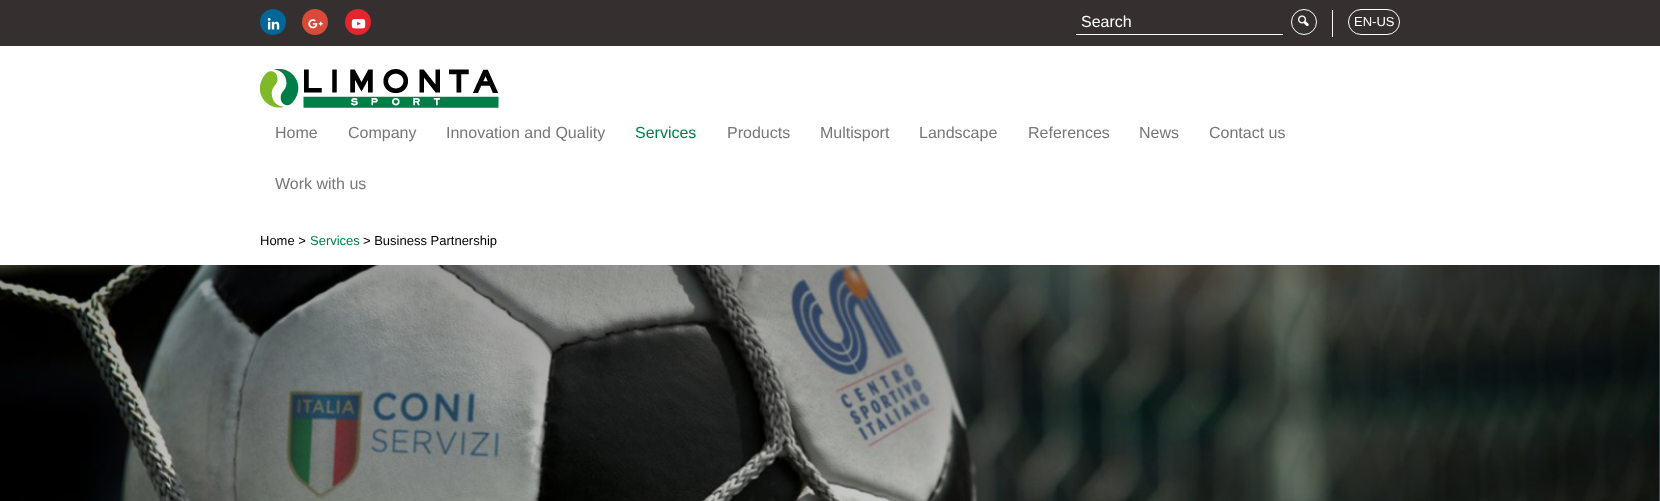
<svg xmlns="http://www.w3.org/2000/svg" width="1660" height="501">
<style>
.a{font:16px Liberation Sans;fill:#fff}
.b{font:13px Liberation Sans;fill:#fff}
.c{font:16px Liberation Sans;fill:#777}
.d{font:16px Liberation Sans;fill:#007f4a}
.e{font:13px Liberation Sans;fill:#000}
.f{font:13px Liberation Sans;fill:#007f4a}
</style>
<defs>
<linearGradient id="g1" gradientUnits="userSpaceOnUse" x1="830" y1="265" x2="830" y2="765"><stop offset="0" stop-color="#000" stop-opacity="0.4"/><stop offset="1" stop-color="#000" stop-opacity="0"/></linearGradient>
</defs>
<rect width="100%" height="100%" fill="#fff"/>
<path fill="#352f2f" d="M0 0h1660v46H0z"/>
<circle fill="#006798" cx="273" cy="22" r="13"/>
<image href="1.png" x="267" y="18" width="13" height="12"/>
<circle fill="#d94a38" cx="315" cy="22" r="13"/>
<image href="2.png" x="308" y="19" width="15" height="10"/>
<circle fill="#e3262b" cx="358" cy="22" r="13"/>
<image href="3.png" x="351" y="19" width="15" height="10"/>
<path fill="#fff" d="M1076 34h207v1H1076z"/>
<circle fill="none" stroke="#fff" cx="1304" cy="22" r="12.5"/>
<image href="4.png" x="1298" y="15" width="11" height="12"/>
<path fill="#fff" d="M1332 10h1v27H1332z"/>
<rect fill="none" stroke="#fff" x="1348.5" y="9.5" width="51" height="25" rx="12.5"/>
<image href="5.png" x="260" y="69" width="239" height="39"/>
<image href="6.png" x="0" y="265" width="1660" height="236"/>
<path fill="url(#g1)" d="M0 265h1660v236H0z"/>
<text class="a" x="1081" y="27">Search</text>
<text class="b" x="1354" y="26">EN-US</text>
<text class="c" x="275" y="138">Home</text>
<text class="c" x="348" y="138">Company</text>
<text class="c" x="446" y="138">Innovation and Quality</text>
<text class="d" x="635" y="138">Services</text>
<text class="c" x="727" y="138">Products</text>
<text class="c" x="820" y="138">Multisport</text>
<text class="c" x="919" y="138">Landscape</text>
<text class="c" x="1028" y="138">References</text>
<text class="c" x="1139" y="138">News</text>
<text class="c" x="1209" y="138">Contact us</text>
<text class="c" x="275" y="189">Work with us</text>
<text class="e" x="260" y="245">Home &gt;</text>
<text class="f" x="310" y="245">Services</text>
<text class="e" x="363" y="245">&gt; Business Partnership</text>
</svg>
